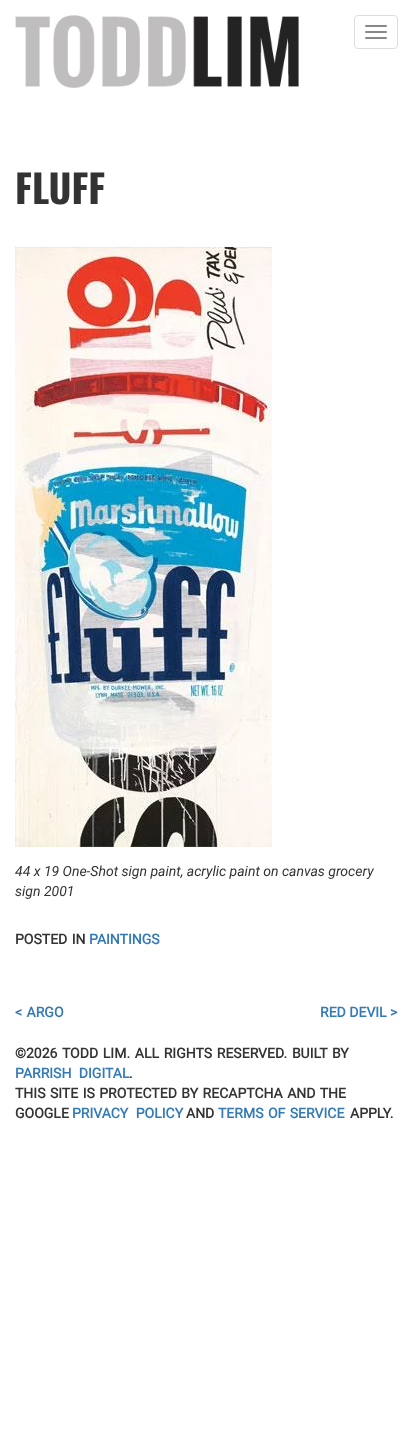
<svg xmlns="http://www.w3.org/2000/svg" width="413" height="1450">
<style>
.a{font:bold 39px Oswald;fill:#333}
.b{font:italic 14px Roboto;fill:#333}
.c{font:bold 14px Roboto;fill:#333}
.d{font:bold 14px Roboto;fill:#337ab7}
</style>
<rect width="100%" height="100%" fill="#fff"/>
<image href="1.png" x="15" y="15" width="284" height="73"/>
<rect fill="none" stroke="#ddd" x="354.5" y="15.5" width="43" height="33" rx="3.5"/>
<rect fill="#888" x="365" y="25" width="22" height="2" rx="1"/>
<rect fill="#888" x="365" y="31" width="22" height="2" rx="1"/>
<rect fill="#888" x="365" y="37" width="22" height="2" rx="1"/>
<image href="2.png" x="15" y="247" width="257" height="600"/>
<text class="a" x="15" y="204">FLUFF</text>
<text class="b" x="15" y="876">44 x 19 One-Shot sign paint, acrylic paint on canvas grocery</text>
<text class="b" x="15" y="896">sign 2001</text>
<text class="c" x="15" y="944" word-spacing="1">POSTED IN</text>
<text class="d" x="89" y="944">PAINTINGS</text>
<text class="d" x="15" y="1017" word-spacing="1">&lt; ARGO</text>
<text class="d" x="320" y="1017">RED DEVIL &gt;</text>
<text class="c" x="15" y="1058" word-spacing="1.25">©2026 TODD LIM. ALL RIGHTS RESERVED. BUILT BY</text>
<text class="d" x="15" y="1078" word-spacing="4">PARRISH DIGITAL</text>
<text class="c" x="129" y="1078">.</text>
<text class="c" x="15" y="1098" word-spacing="1">THIS SITE IS PROTECTED BY RECAPTCHA AND THE</text>
<text class="c" x="15" y="1118">GOOGLE</text>
<text class="d" x="72" y="1118" word-spacing="4">PRIVACY POLICY</text>
<text class="c" x="186" y="1118">AND</text>
<text class="d" x="218" y="1118" word-spacing="1">TERMS OF SERVICE</text>
<text class="c" x="350" y="1118">APPLY.</text>
</svg>
